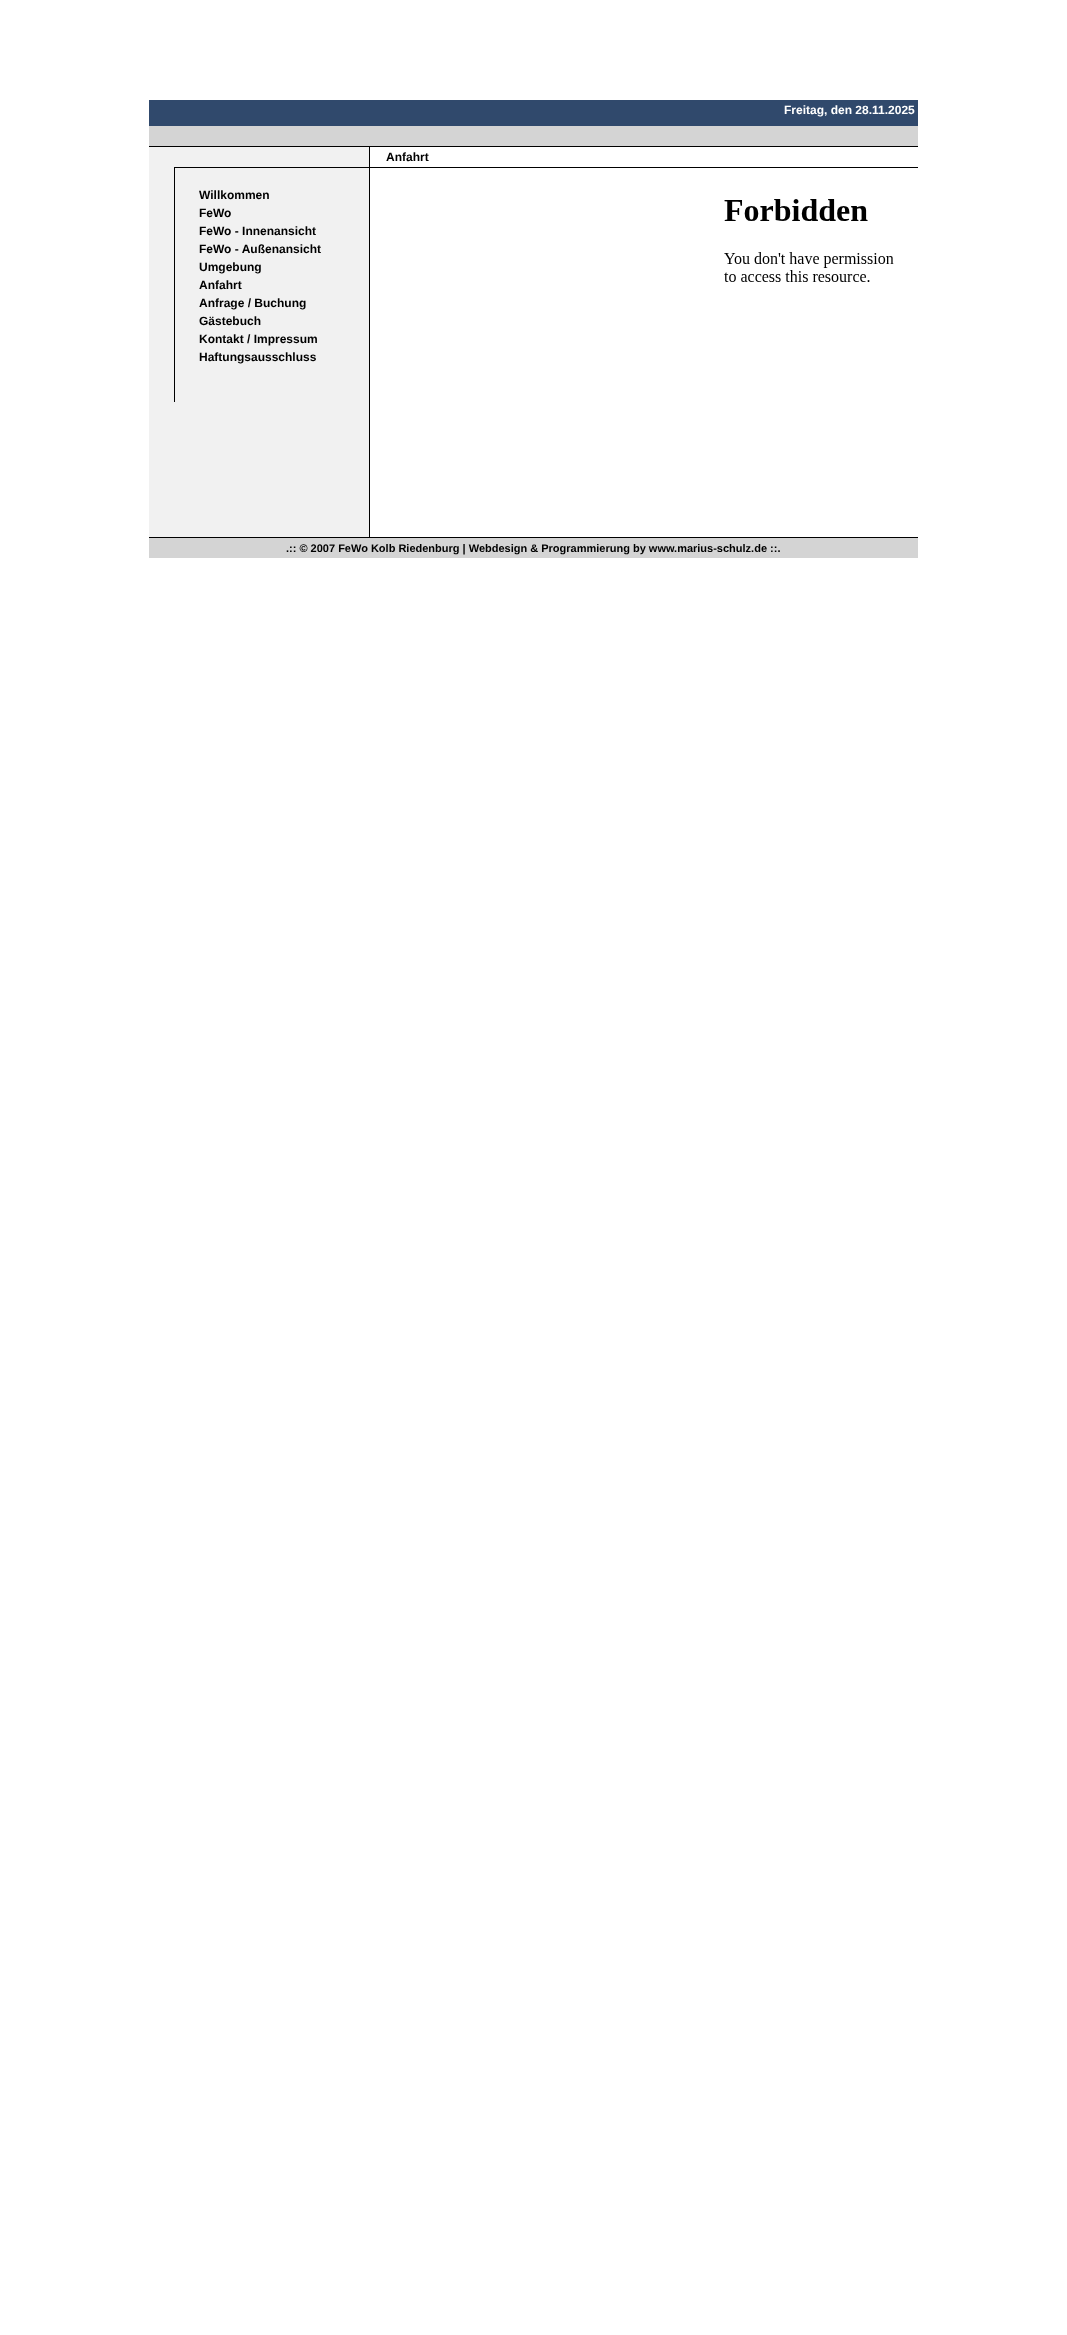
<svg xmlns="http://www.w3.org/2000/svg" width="1067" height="2335">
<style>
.a{font:bold 12px Liberation Sans;fill:#fff}
.b{font:bold 12px Liberation Sans;fill:#000}
.c{font:bold 11px Liberation Sans;fill:#000}
</style>
<rect width="100%" height="100%" fill="#fff"/>
<path fill="#30496c" d="M149 100h769v26H149z"/>
<path fill="#d4d4d4" d="M149 126h769v20H149z"/>
<path fill="#000" d="M149 146h769v1H149z"/>
<path fill="#000" d="M370 167h548v1H370z"/>
<image href="1.png" x="724" y="199" width="170" height="83"/>
<path fill="#f1f1f1" d="M149 147h220v390H149z"/>
<path fill="#000" d="M369 147h1v390H369z"/>
<path fill="#000" d="M174 167h195v1H174z"/>
<path fill="#000" d="M174 167h1v235H174z"/>
<path fill="#d4d4d4" d="M149 538h769v20H149z"/>
<path fill="#000" d="M149 537h769v1H149z"/>
<text class="a" x="784" y="114">Freitag, den 28.11.2025</text>
<text class="b" x="386" y="161">Anfahrt</text>
<text class="b" x="199" y="199">Willkommen</text>
<text class="b" x="199" y="217">FeWo</text>
<text class="b" x="199" y="235">FeWo - Innenansicht</text>
<text class="b" x="199" y="253">FeWo - Außenansicht</text>
<text class="b" x="199" y="271">Umgebung</text>
<text class="b" x="199" y="289">Anfahrt</text>
<text class="b" x="199" y="307">Anfrage / Buchung</text>
<text class="b" x="199" y="325">Gästebuch</text>
<text class="b" x="199" y="343">Kontakt / Impressum</text>
<text class="b" x="199" y="361">Haftungsausschluss</text>
<text class="c" x="286" y="552">.:: © 2007 FeWo Kolb Riedenburg | Webdesign &amp; Programmierung by www.marius-schulz.de ::.</text>
</svg>
